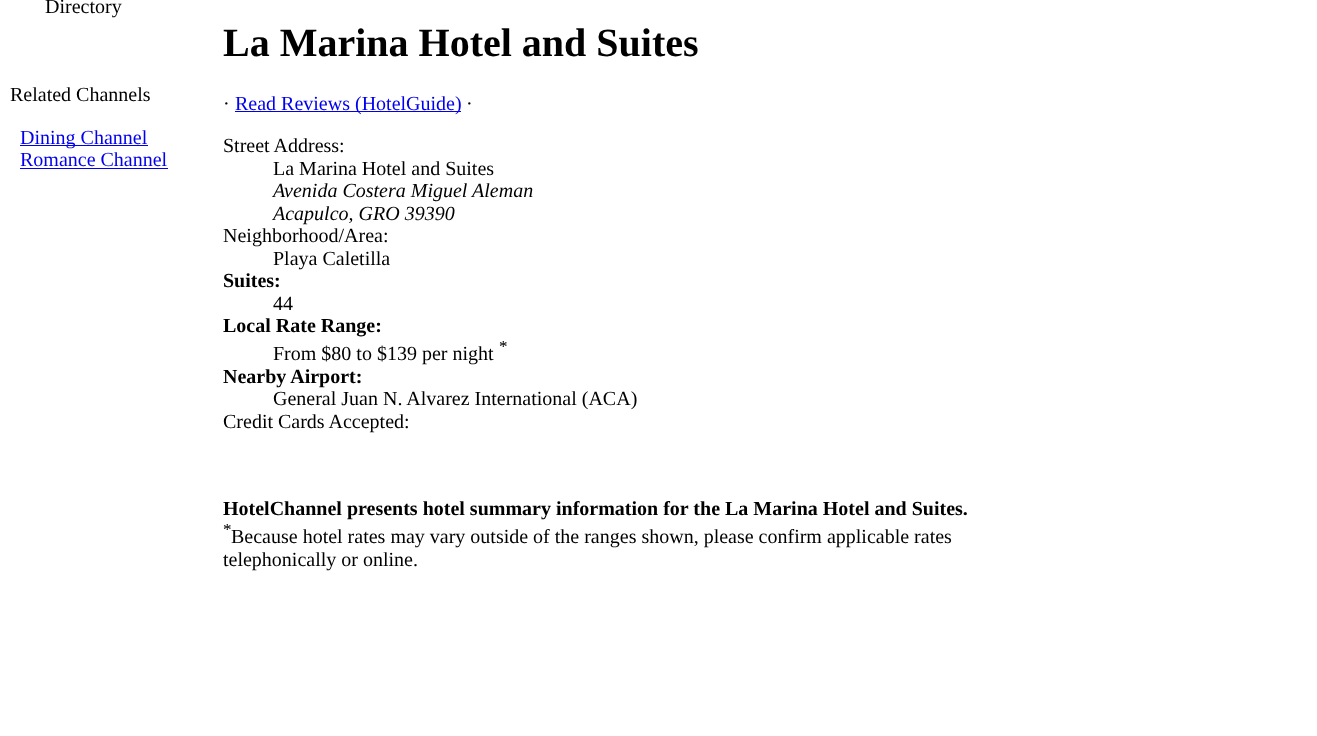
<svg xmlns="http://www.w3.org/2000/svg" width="1317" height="736">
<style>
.a{font:20px Liberation Serif;fill:#000}
.b{font:20px Liberation Serif;fill:#00e}
.c{font:bold 40px Liberation Serif;fill:#000}
.d{font:italic 20px Liberation Serif;fill:#000}
.e{font:bold 20px Liberation Serif;fill:#000}
.f{font:17px Liberation Serif;fill:#000}
</style>
<rect width="100%" height="100%" fill="#fff"/>
<path fill="#00e" d="M20 145h128v1H20z"/>
<path fill="#00e" d="M20 168h148v1H20z"/>
<path fill="#00e" d="M235 111h226v1H235z"/>
<text class="a" x="45" y="13">Directory</text>
<text class="a" x="10" y="101">Related Channels</text>
<text class="b" x="20" y="144">Dining Channel</text>
<text class="b" x="20" y="166">Romance Channel</text>
<text class="c" x="223" y="56">La Marina Hotel and Suites</text>
<text class="a" x="223" y="110">·</text>
<text class="b" x="235" y="110">Read Reviews (HotelGuide)</text>
<text class="a" x="466" y="110">·</text>
<text class="a" x="223" y="152">Street Address:</text>
<text class="a" x="273" y="175">La Marina Hotel and Suites</text>
<text class="d" x="273" y="197">Avenida Costera Miguel Aleman</text>
<text class="d" x="273" y="220">Acapulco, GRO 39390</text>
<text class="a" x="223" y="242">Neighborhood/Area:</text>
<text class="a" x="273" y="265">Playa Caletilla</text>
<text class="e" x="223" y="287">Suites:</text>
<text class="a" x="273" y="310">44</text>
<text class="e" x="223" y="332">Local Rate Range:</text>
<text class="a" x="273" y="360">From $80 to $139 per night</text>
<text class="f" x="499" y="352">*</text>
<text class="e" x="223" y="383">Nearby Airport:</text>
<text class="a" x="273" y="405">General Juan N. Alvarez International (ACA)</text>
<text class="a" x="223" y="428">Credit Cards Accepted:</text>
<text class="e" x="223" y="515">HotelChannel presents hotel summary information for the La Marina Hotel and Suites.</text>
<text class="f" x="223" y="535">*</text>
<text class="a" x="231" y="543">Because hotel rates may vary outside of the ranges shown, please confirm applicable rates</text>
<text class="a" x="223" y="566">telephonically or online.</text>
</svg>
